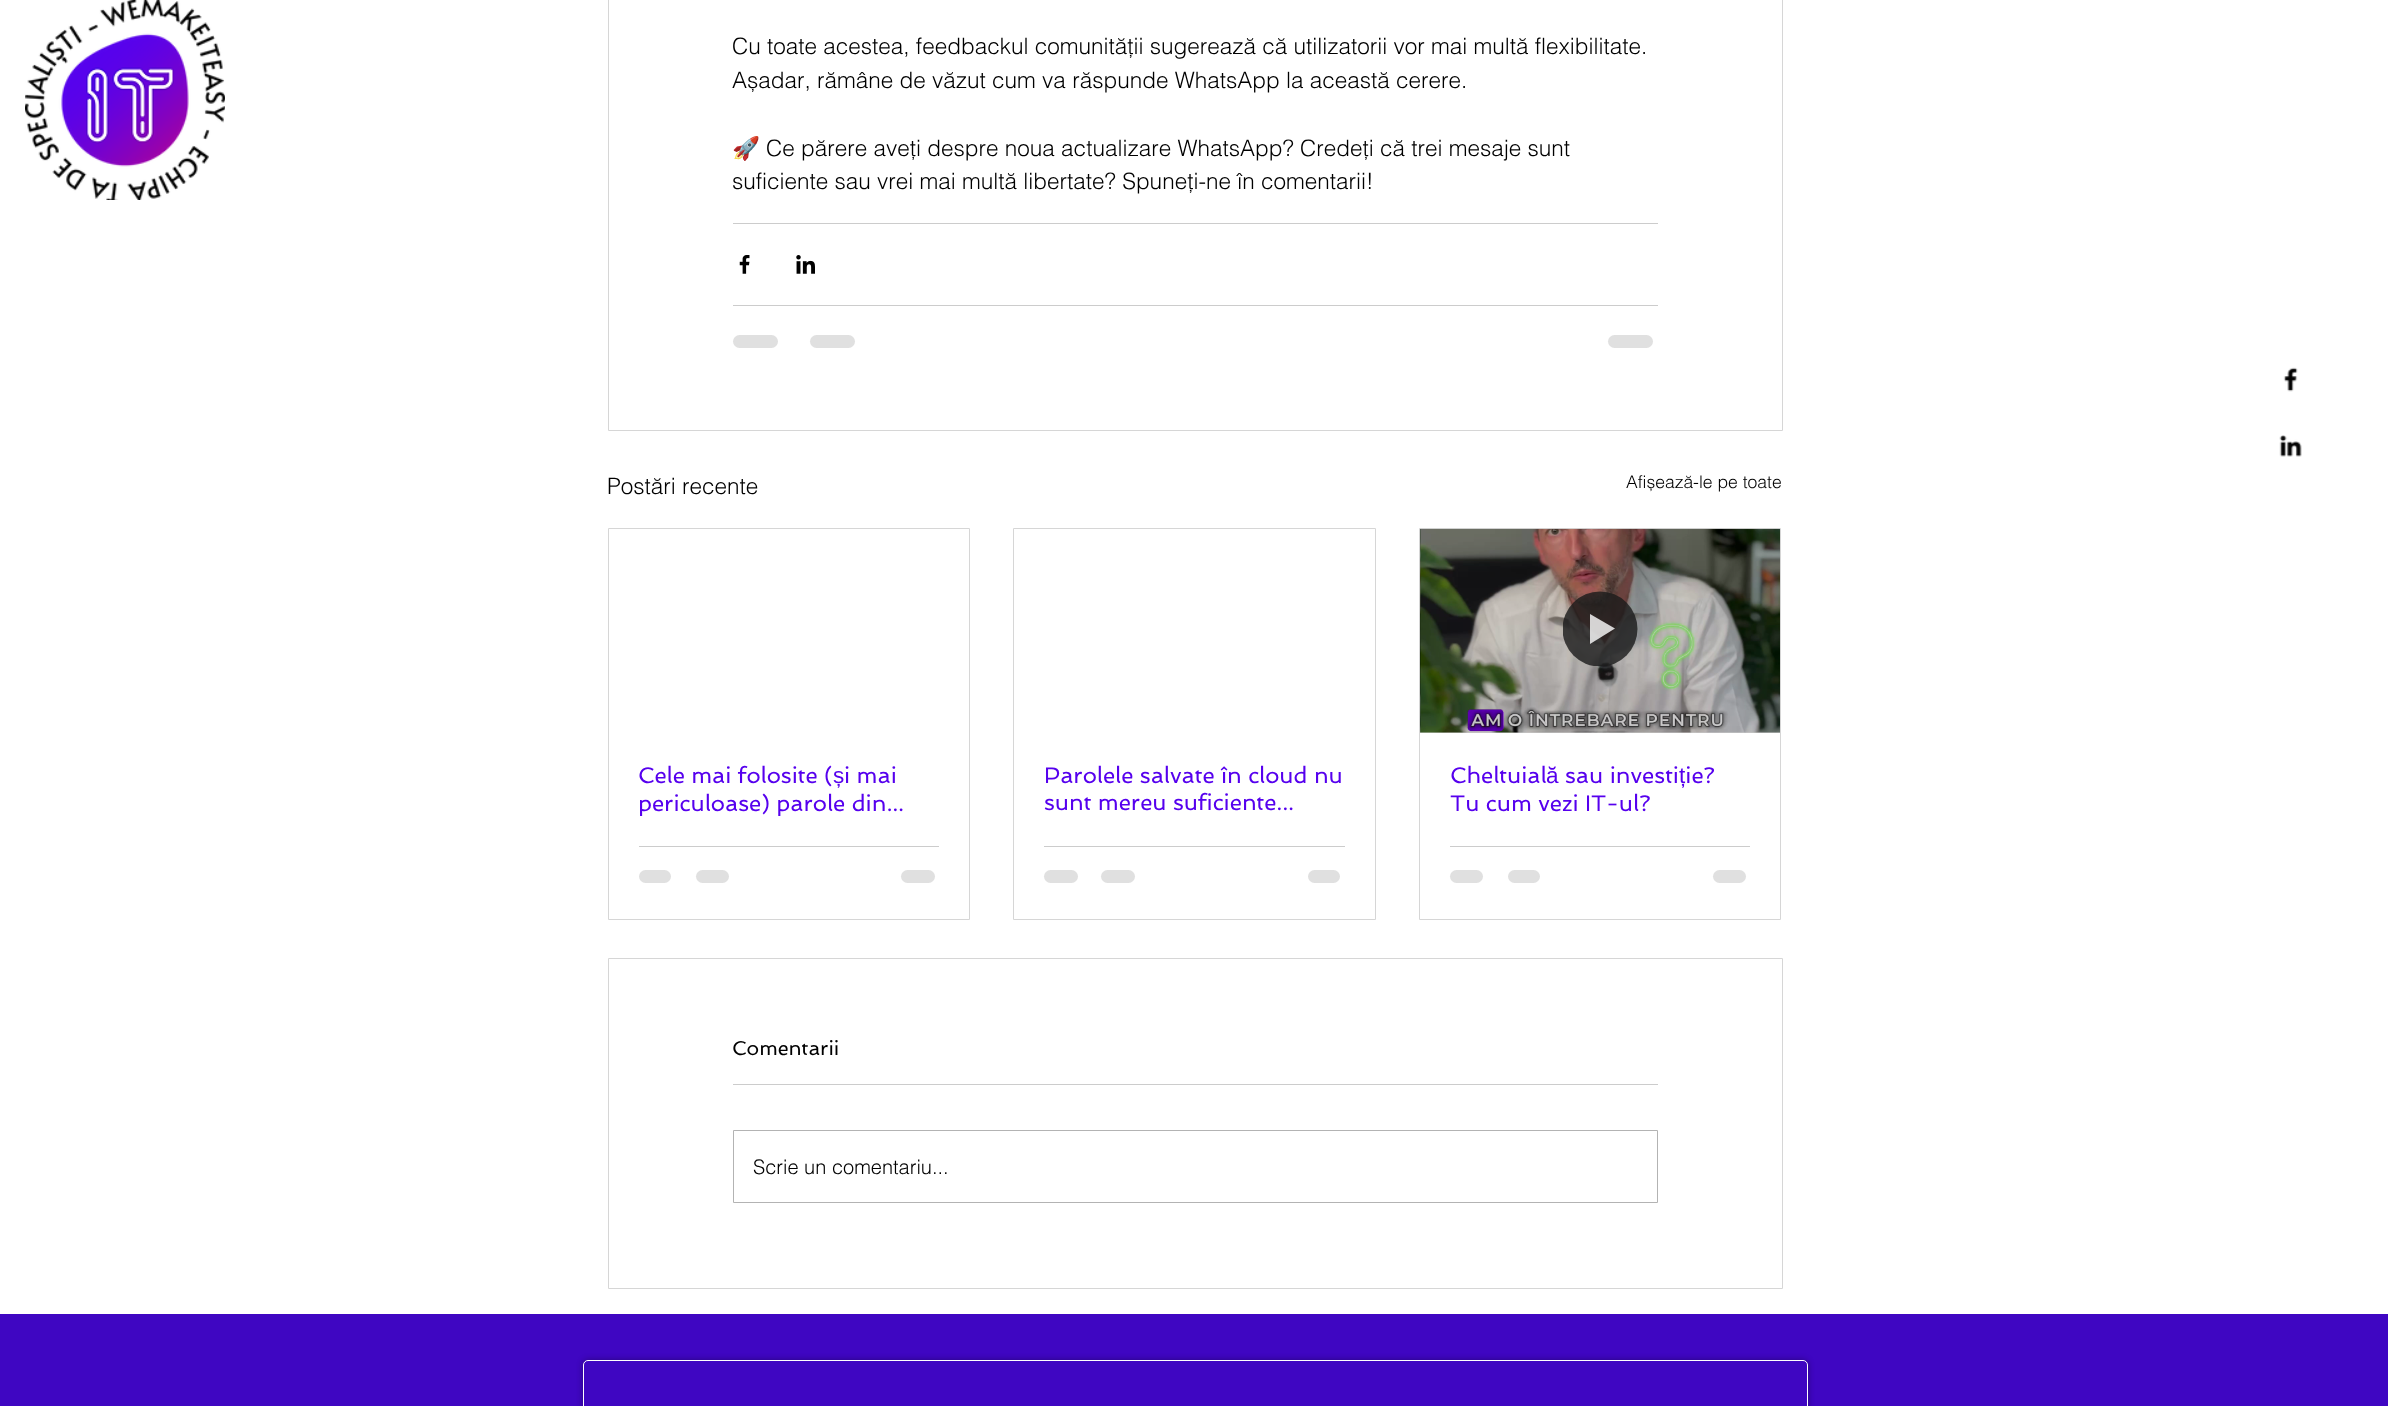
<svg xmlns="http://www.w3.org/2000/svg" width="2388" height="1406">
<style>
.a{font:300 22.5px helvetica;fill:#000}
.b{font:22.5px Noto Color Emoji;fill:#000}
.c{font:300 17.5px helvetica;fill:#000}
.d{font:22.5px Spinnaker;fill:#5600ee}
.e{font:22.5px Liberation Sans;fill:#5600ee}
.f{font:20px Spinnaker;fill:#000}
.g{font:300 20px helvetica;fill:#000}
</style>
<defs>
<clipPath id="clip1"><path d="M1563 591h75v75H1563z"/></clipPath>
<clipPath id="clip2"><path d="M639 763h300v53H639z"/></clipPath>
</defs>
<rect width="100%" height="100%" fill="#fff"/>
<path fill="#ccc" d="M1420 732h360v1H1420z"/>
<image href="1.png" x="25" y="0" width="200" height="200"/>
<path fill="none" stroke="#d6d6d6" d="M608.5 -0.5h1174v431H608.5z"/>
<path fill="#ccc" d="M733 223h925v1H733z"/>
<image href="2.png" x="739" y="255" width="11" height="19"/>
<image href="3.png" x="796" y="255" width="19" height="19"/>
<path fill="#ccc" d="M733 305h925v1H733z"/>
<rect fill="#e0e0e0" x="733" y="335" width="45" height="13" rx="6.5"/>
<rect fill="#e0e0e0" x="810" y="335" width="45" height="13" rx="6.5"/>
<rect fill="#e0e0e0" x="1608" y="335" width="45" height="13" rx="6.5"/>
<path fill="none" stroke="#d6d6d6" d="M608.5 528.5h361v391H608.5z"/>
<path fill="#ccc" d="M639 846h300v1H639z"/>
<rect fill="#e0e0e0" x="639" y="870" width="32" height="13" rx="6.5"/>
<rect fill="#e0e0e0" x="696" y="870" width="33" height="13" rx="6.5"/>
<rect fill="#e0e0e0" x="901" y="870" width="34" height="13" rx="6.5"/>
<path fill="none" stroke="#d6d6d6" d="M1013.5 528.5h362v391H1013.5z"/>
<path fill="#ccc" d="M1044 846h301v1H1044z"/>
<rect fill="#e0e0e0" x="1044" y="870" width="34" height="13" rx="6.5"/>
<rect fill="#e0e0e0" x="1101" y="870" width="34" height="13" rx="6.5"/>
<rect fill="#e0e0e0" x="1308" y="870" width="32" height="13" rx="6.5"/>
<path fill="none" stroke="#d6d6d6" d="M1419.5 528.5h361v391H1419.5z"/>
<image href="4.png" x="1420" y="528" width="360" height="205"/>
<g clip-path="url(#clip1)">
<circle fill="#1a1a1acc" cx="1600" cy="629" r="37.5"/>
</g>
<path fill="#ffffffcc" d="M1590 614v30l25-15.5z"/>
<path fill="#ccc" d="M1450 846h300v1H1450z"/>
<rect fill="#e0e0e0" x="1450" y="870" width="33" height="13" rx="6.5"/>
<rect fill="#e0e0e0" x="1508" y="870" width="32" height="13" rx="6.5"/>
<rect fill="#e0e0e0" x="1713" y="870" width="33" height="13" rx="6.5"/>
<path fill="none" stroke="#d6d6d6" d="M608.5 958.5h1174v330H608.5z"/>
<path fill="#ccc" d="M733 1084h925v1H733z"/>
<path fill="none" stroke="#b3b3b3" d="M733.5 1130.5h924v72H733.5z"/>
<image href="5.png" x="2283" y="367" width="15" height="25"/>
<image href="6.png" x="2279" y="435" width="23" height="22"/>
<path fill="#3f06c2" d="M0 1314h2388v92H0z"/>
<rect fill="#0000005c" filter="blur(3px)" x="583" y="1360" width="1225" height="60" rx="5"/>
<rect fill="#3f06c2" stroke="#fff" x="583.5" y="1360.5" width="1224" height="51" rx="4.5"/>
<text class="a" x="732" y="54">Cu toate acestea, feedbackul comunității sugerează că utilizatorii vor mai multă flexibilitate.</text>
<text class="a" x="732" y="88">Așadar, rămâne de văzut cum va răspunde WhatsApp la această cerere.</text>
<text class="b" x="732" y="156">🚀</text>
<text class="a" x="766" y="156">Ce părere aveți despre noua actualizare WhatsApp? Credeți că trei mesaje sunt</text>
<text class="a" x="732" y="189">suficiente sau vrei mai multă libertate? Spuneți-ne în comentarii!</text>
<text class="a" x="607" y="494">Postări recente</text>
<text class="c" x="1626" y="488">Afișează-le pe toate</text>
<text class="d" x="638" y="783">Cele mai folosite (</text>
<text class="e" x="833" y="783">ș</text>
<text class="d" x="844" y="783">i mai</text>
<g clip-path="url(#clip2)">
<text class="d" x="638" y="811">periculoase) parole din...</text>
</g>
<text class="d" x="1044" y="783">Parolele salvate în cloud nu</text>
<text class="d" x="1044" y="810">sunt mereu suficiente...</text>
<text class="d" x="1450" y="783">Cheltuial</text>
<text class="e" x="1546" y="783">ă</text>
<text class="d" x="1565" y="783">sau investi ie?</text>
<text class="e" x="1679" y="783">ț</text>
<text class="d" x="1450" y="811">Tu cum vezi IT-ul?</text>
<text class="f" x="732" y="1055">Comentarii</text>
<text class="g" x="753" y="1174">Scrie un comentariu...</text>
</svg>
